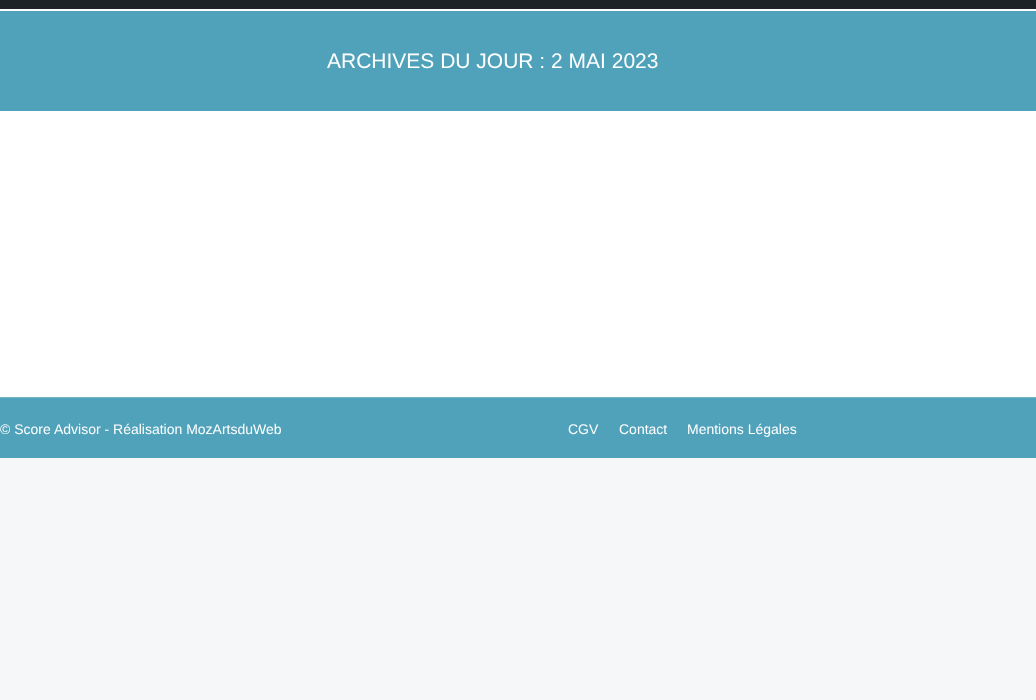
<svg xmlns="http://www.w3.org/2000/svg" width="1036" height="700">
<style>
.a{font:21px Liberation Sans;fill:#fff}
.b{font:14px Liberation Sans;fill:#fff}
</style>
<rect width="100%" height="100%" fill="#f6f7f9"/>
<path fill="#fff" d="M0 111h1036v286H0z"/>
<path fill="#1c2226" d="M0 0h1036v9H0z"/>
<path fill="#fff" d="M0 9h1036v2H0z"/>
<path fill="#50a2bb" d="M0 11h1036v100H0z"/>
<path fill="#75b5c8" d="M0 397h1036v1H0z"/>
<path fill="#50a2ba" d="M0 398h1036v60H0z"/>
<text class="a" x="327" y="68">ARCHIVES DU JOUR : 2 MAI 2023</text>
<text class="b" x="0" y="434">© Score Advisor - Réalisation MozArtsduWeb</text>
<text class="b" x="568" y="434">CGV</text>
<text class="b" x="619" y="434">Contact</text>
<text class="b" x="687" y="434">Mentions Légales</text>
</svg>
